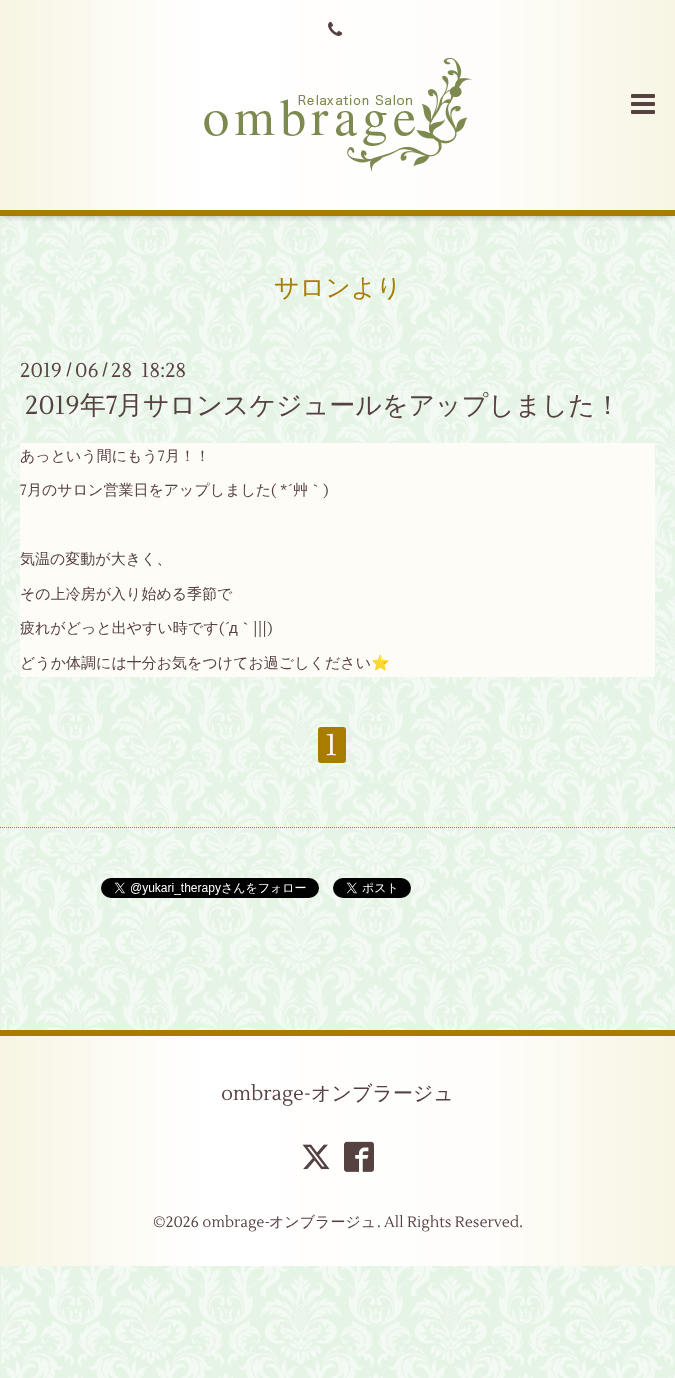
<svg xmlns="http://www.w3.org/2000/svg" width="675" height="1378">
<style>*{font-kerning:none!important;font-variant-ligatures:none!important}</style>
<style>
.a{font:500 25px WenQuanYi Zen Hei;fill:#a87c00}
.b{font:20px Lustria;fill:#564141}
.c{font:bold 16px Lustria;fill:#564141}
.d{font:26px Lustria;fill:#564141}
.e{font:500 26px WenQuanYi Zen Hei;fill:#564141}
.f{font:500 15px WenQuanYi Zen Hei;fill:#564141}
.g{font:15px Lustria;fill:#564141}
.h{font:15px Liberation Sans;fill:#564141}
.i{font:15px Noto Color Emoji;fill:#564141}
.j{font:30px Lustria;fill:#fff}
.k{font:500 20px WenQuanYi Zen Hei;fill:#564141}
</style>
<rect width="100%" height="100%" fill="#e6f4e6"/>
<image href="1.png" x="1" y="216" width="674" height="1162"/>
<path fill="#00000099" filter="blur(5px)" d="M4 5h667v208H4z"/>
<image href="2.png" x="0" y="0" width="675" height="210"/>
<path fill="#a87c00" d="M0 210h675v6H0z"/>
<image href="3.png" x="328" y="21" width="15" height="15"/>
<image href="4.png" x="204" y="58" width="268" height="114"/>
<image href="5.png" x="631" y="94" width="24" height="20"/>
<path fill="#fefcf6" d="M20 443h635v234H20z"/>
<rect fill="#a87c00" x="318" y="727" width="28" height="36" rx="3"/>
<path fill="none" stroke="#a87c00" stroke-dasharray="1 1" d="M0 827.5h675"/>
<image href="6.png" x="101" y="878" width="218" height="20"/>
<image href="7.png" x="333" y="878" width="78" height="20"/>
<image href="8.png" x="0" y="1036" width="675" height="230"/>
<path fill="#a87c00" d="M0 1030h675v6H0z"/>
<image href="9.png" x="302" y="1144" width="28" height="26"/>
<image href="10.png" x="344" y="1141" width="30" height="31"/>
<text class="a" x="274" y="296">サロンより</text>
<text class="b" x="20" y="377">2019</text>
<text class="c" x="66" y="375">/</text>
<text class="b" x="75" y="377">06</text>
<text class="c" x="102" y="375">/</text>
<text class="b" xml:space="preserve" x="111" y="377">28  18:28</text>
<text class="d" x="25" y="414">2019</text>
<text class="e" x="80" y="414">年</text>
<text class="d" x="106" y="414">7</text>
<text class="e" x="117" y="414">月サロンスケジュールをアップしました！</text>
<text class="f" x="20" y="461">あっという間にもう</text>
<text class="g" x="158" y="461">7</text>
<text class="f" x="165" y="461">月！！</text>
<text class="g" x="20" y="495">7</text>
<text class="f" x="27" y="495">月のサロン営業日をアップしました</text>
<text class="g" x="271" y="495">( *´</text>
<text class="f" x="293" y="495">艸｀</text>
<text class="g" x="323" y="495">)</text>
<text class="f" x="20" y="564">気温の変動が大きく、</text>
<text class="f" x="20" y="599">その上冷房が入り始める季節で</text>
<text class="f" x="20" y="633">疲れがどっと出やすい時です</text>
<text class="g" x="219" y="633">(´</text>
<text class="f" x="238" y="633">｀</text>
<text class="g" x="253" y="633">|||)</text>
<text class="h" x="229" y="633">д</text>
<text class="f" x="20" y="668">どうか体調には十分お気をつけてお過ごしください</text>
<text class="i" x="371" y="668">⭐</text>
<text class="j" x="325" y="755">1</text>
<text class="b" x="221" y="1100">ombrage-</text>
<text class="k" x="311" y="1100">オンブラージュ</text>
<text class="g" x="153" y="1227">©2026 ombrage-</text>
<text class="f" x="269" y="1227">オンブラージュ</text>
<text class="g" x="377" y="1227">. All Rights Reserved.</text>
</svg>
